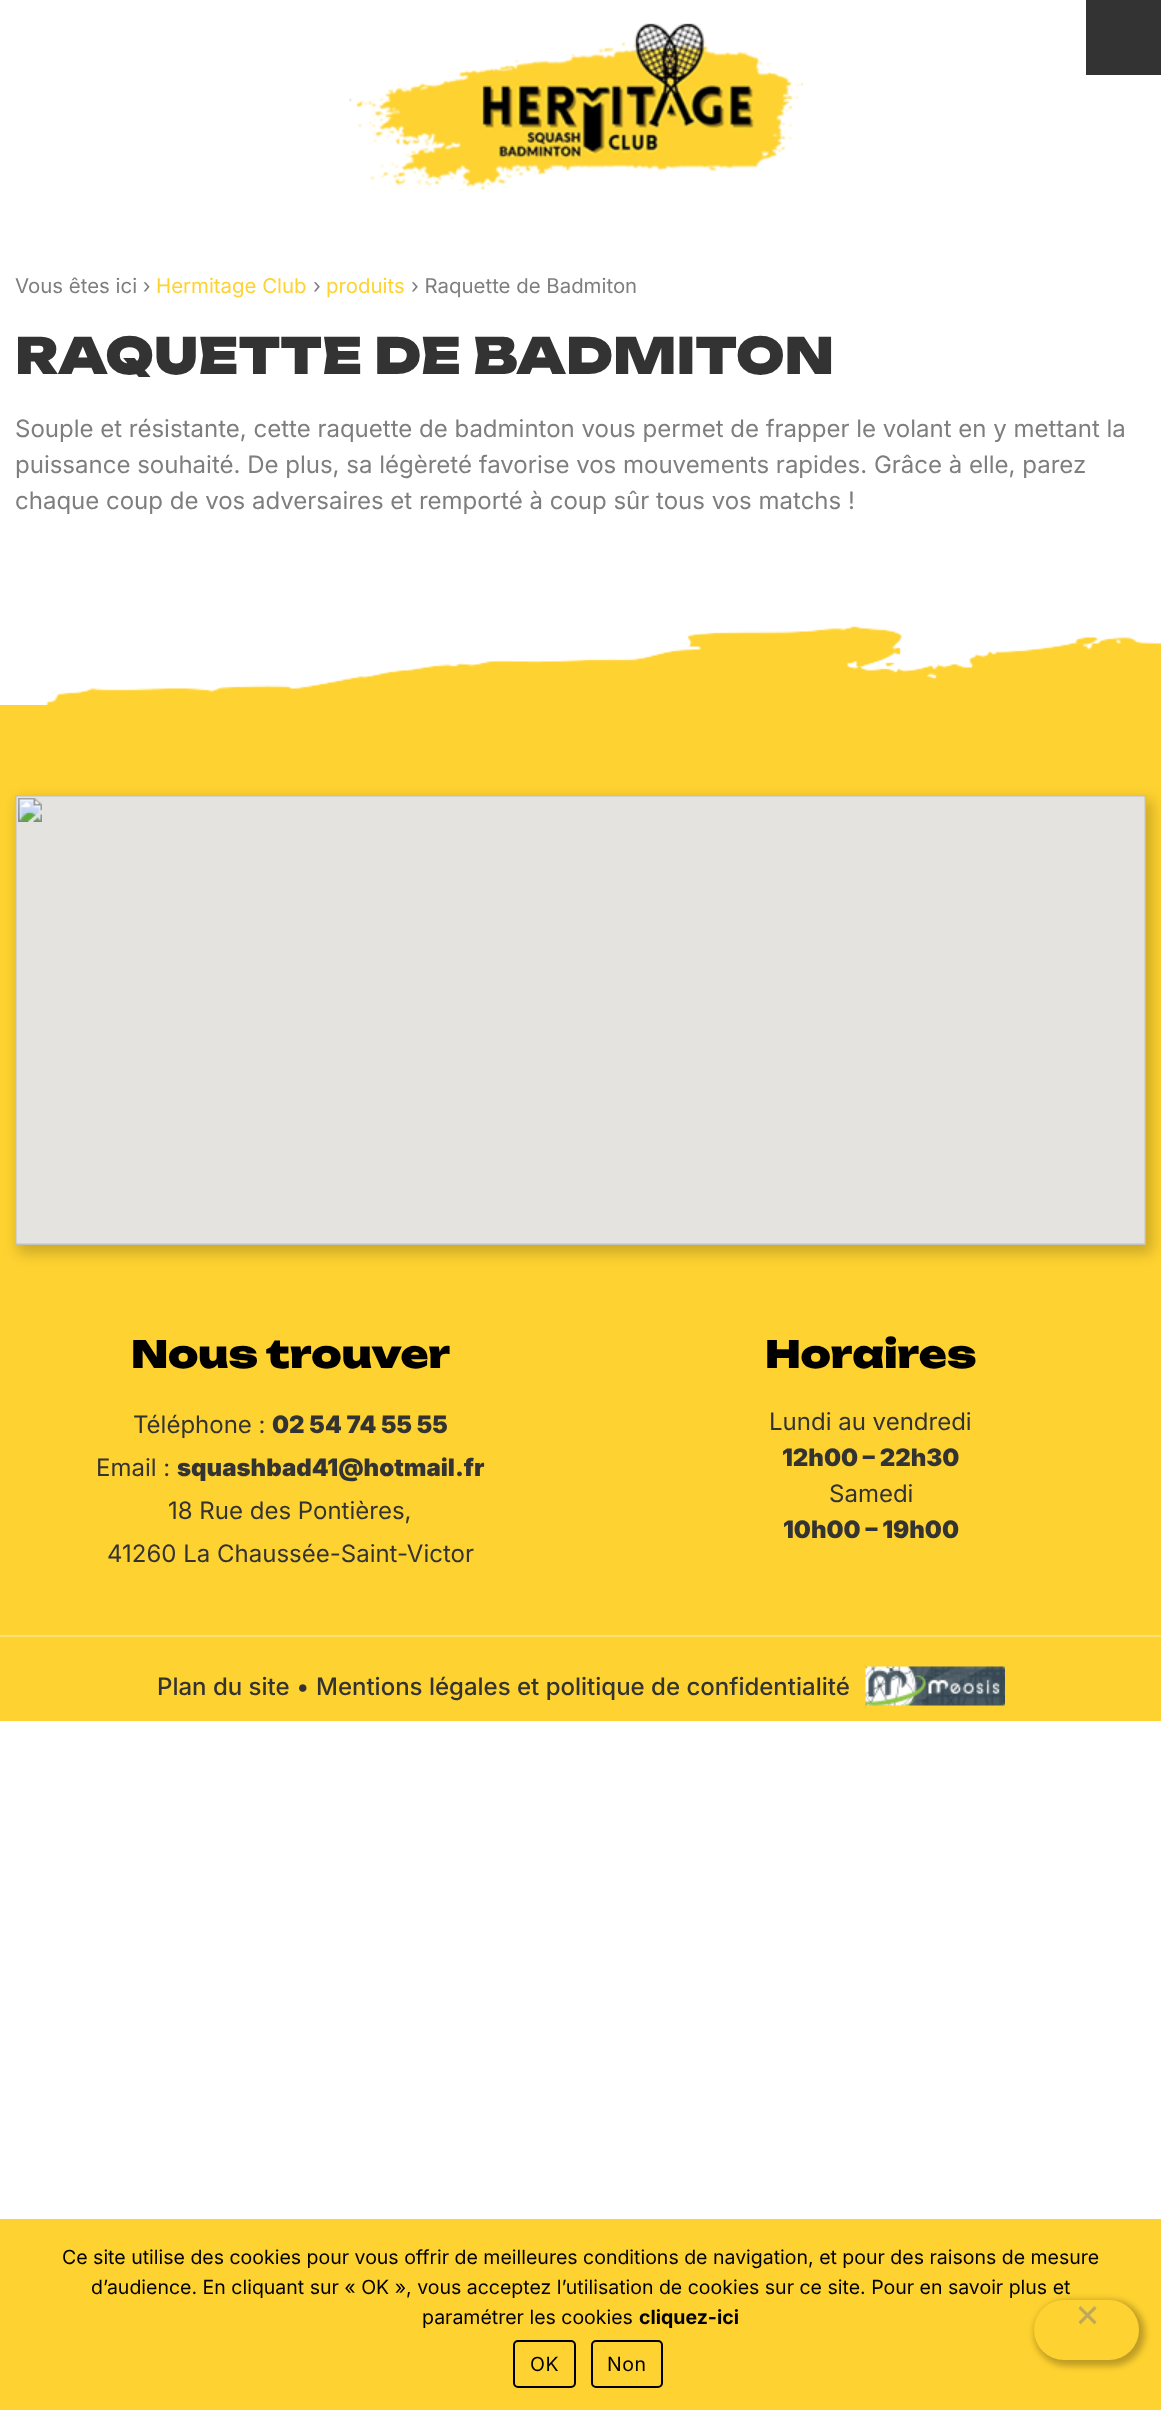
<svg xmlns="http://www.w3.org/2000/svg" width="1161" height="2410">
<style>
.a{font:20.4px Inter;fill:#7e7e7e}
.b{font:20.4px Inter;fill:#fed230}
.c{font:900 49.8px Unbounded;fill:#333}
.d{font:24px Inter;fill:#7e7e7e}
.e{font:900 37.5px Unbounded;fill:#000}
.f{font:24px Inter;fill:#333}
.g{font:900 24px Inter;fill:#333}
.h{font:500 24px Inter;fill:#333}
.i{font:19.5px Inter;fill:#000}
.j{font:bold 19.5px Inter;fill:#000}
.k{font:19.5px Inter;letter-spacing:0.5px;fill:#000}
</style>
<rect width="100%" height="100%" fill="#fff"/>
<image href="1.png" x="349" y="23" width="455" height="168"/>
<path fill="#333" d="M1086 0h75v75H1086z"/>
<path fill="#fed230" d="M0 705h1161v1016H0z"/>
<image href="2.png" x="46" y="625" width="1115" height="80"/>
<path fill="#00000033" filter="blur(7px)" d="M18 800h1134v453H18z"/>
<image href="3.png" x="15" y="795" width="1131" height="450"/>
<path fill="#fee176" d="M0 1635h1161v2H0z"/>
<image href="4.png" x="865" y="1666" width="140" height="40"/>
<path fill="#fed230" d="M0 2219h1161v191H0z"/>
<rect fill="none" stroke="#000" stroke-width="2" x="514" y="2341" width="61" height="46" rx="4"/>
<rect fill="none" stroke="#000" stroke-width="2" x="592" y="2341" width="70" height="46" rx="4"/>
<rect fill="#00000040" filter="blur(3px)" x="1034" y="2300" width="111" height="66" rx="33"/>
<rect fill="#fed230" x="1034" y="2300" width="105" height="60" rx="30"/>
<path fill="#bfa958" d="M1094.5 2306l2 2.5l-16 16l-2-2.5z"/>
<path fill="#bfa958" d="M1078.5 2308.5l2-2.5l16 16l-2 2.5z"/>
<text class="a" x="15" y="293">Vous êtes ici ›</text>
<text class="b" x="156" y="293">Hermitage Club</text>
<text class="a" x="313" y="293">›</text>
<text class="b" x="326" y="293">produits</text>
<text class="a" x="411" y="293">› Raquette de Badmiton</text>
<text class="c" x="15" y="374">RAQUETTE DE BADMITON</text>
<text class="d" x="15" y="437">Souple et résistante, cette raquette de badminton vous permet de frapper le volant en y mettant la</text>
<text class="d" x="15" y="473">puissance souhaité. De plus, sa légèreté favorise vos mouvements rapides. Grâce à elle, parez</text>
<text class="d" x="15" y="509">chaque coup de vos adversaires et remporté à coup sûr tous vos matchs !</text>
<text class="e" x="131" y="1368">Nous trouver</text>
<text class="f" x="133" y="1433">Téléphone :</text>
<text class="g" x="272" y="1433">02 54 74 55 55</text>
<text class="f" x="96" y="1476">Email :</text>
<text class="g" x="177" y="1476">squashbad41@hotmail.fr</text>
<text class="f" x="168" y="1519">18 Rue des Pontières,</text>
<text class="f" x="107" y="1562">41260 La Chaussée-Saint-Victor</text>
<text class="e" x="765" y="1368">Horaires</text>
<text class="f" x="769" y="1430">Lundi au vendredi</text>
<text class="g" x="782" y="1466">12h00 – 22h30</text>
<text class="f" x="829" y="1502">Samedi</text>
<text class="g" x="783" y="1538">10h00 – 19h00</text>
<text class="h" x="157" y="1695">Plan du site</text>
<text class="f" x="296" y="1695">•</text>
<text class="h" x="316" y="1695">Mentions légales et politique de confidentialité</text>
<text class="i" x="62" y="2264">Ce site utilise des cookies pour vous offrir de meilleures conditions de navigation, et pour des raisons de mesure</text>
<text class="i" x="91" y="2294">d’audience. En cliquant sur « OK », vous acceptez l’utilisation de cookies sur ce site. Pour en savoir plus et</text>
<text class="i" x="422" y="2324">paramétrer les cookies</text>
<text class="j" x="639" y="2324">cliquez-ici</text>
<text class="k" x="530" y="2371">OK</text>
<text class="k" x="607" y="2371">Non</text>
</svg>
